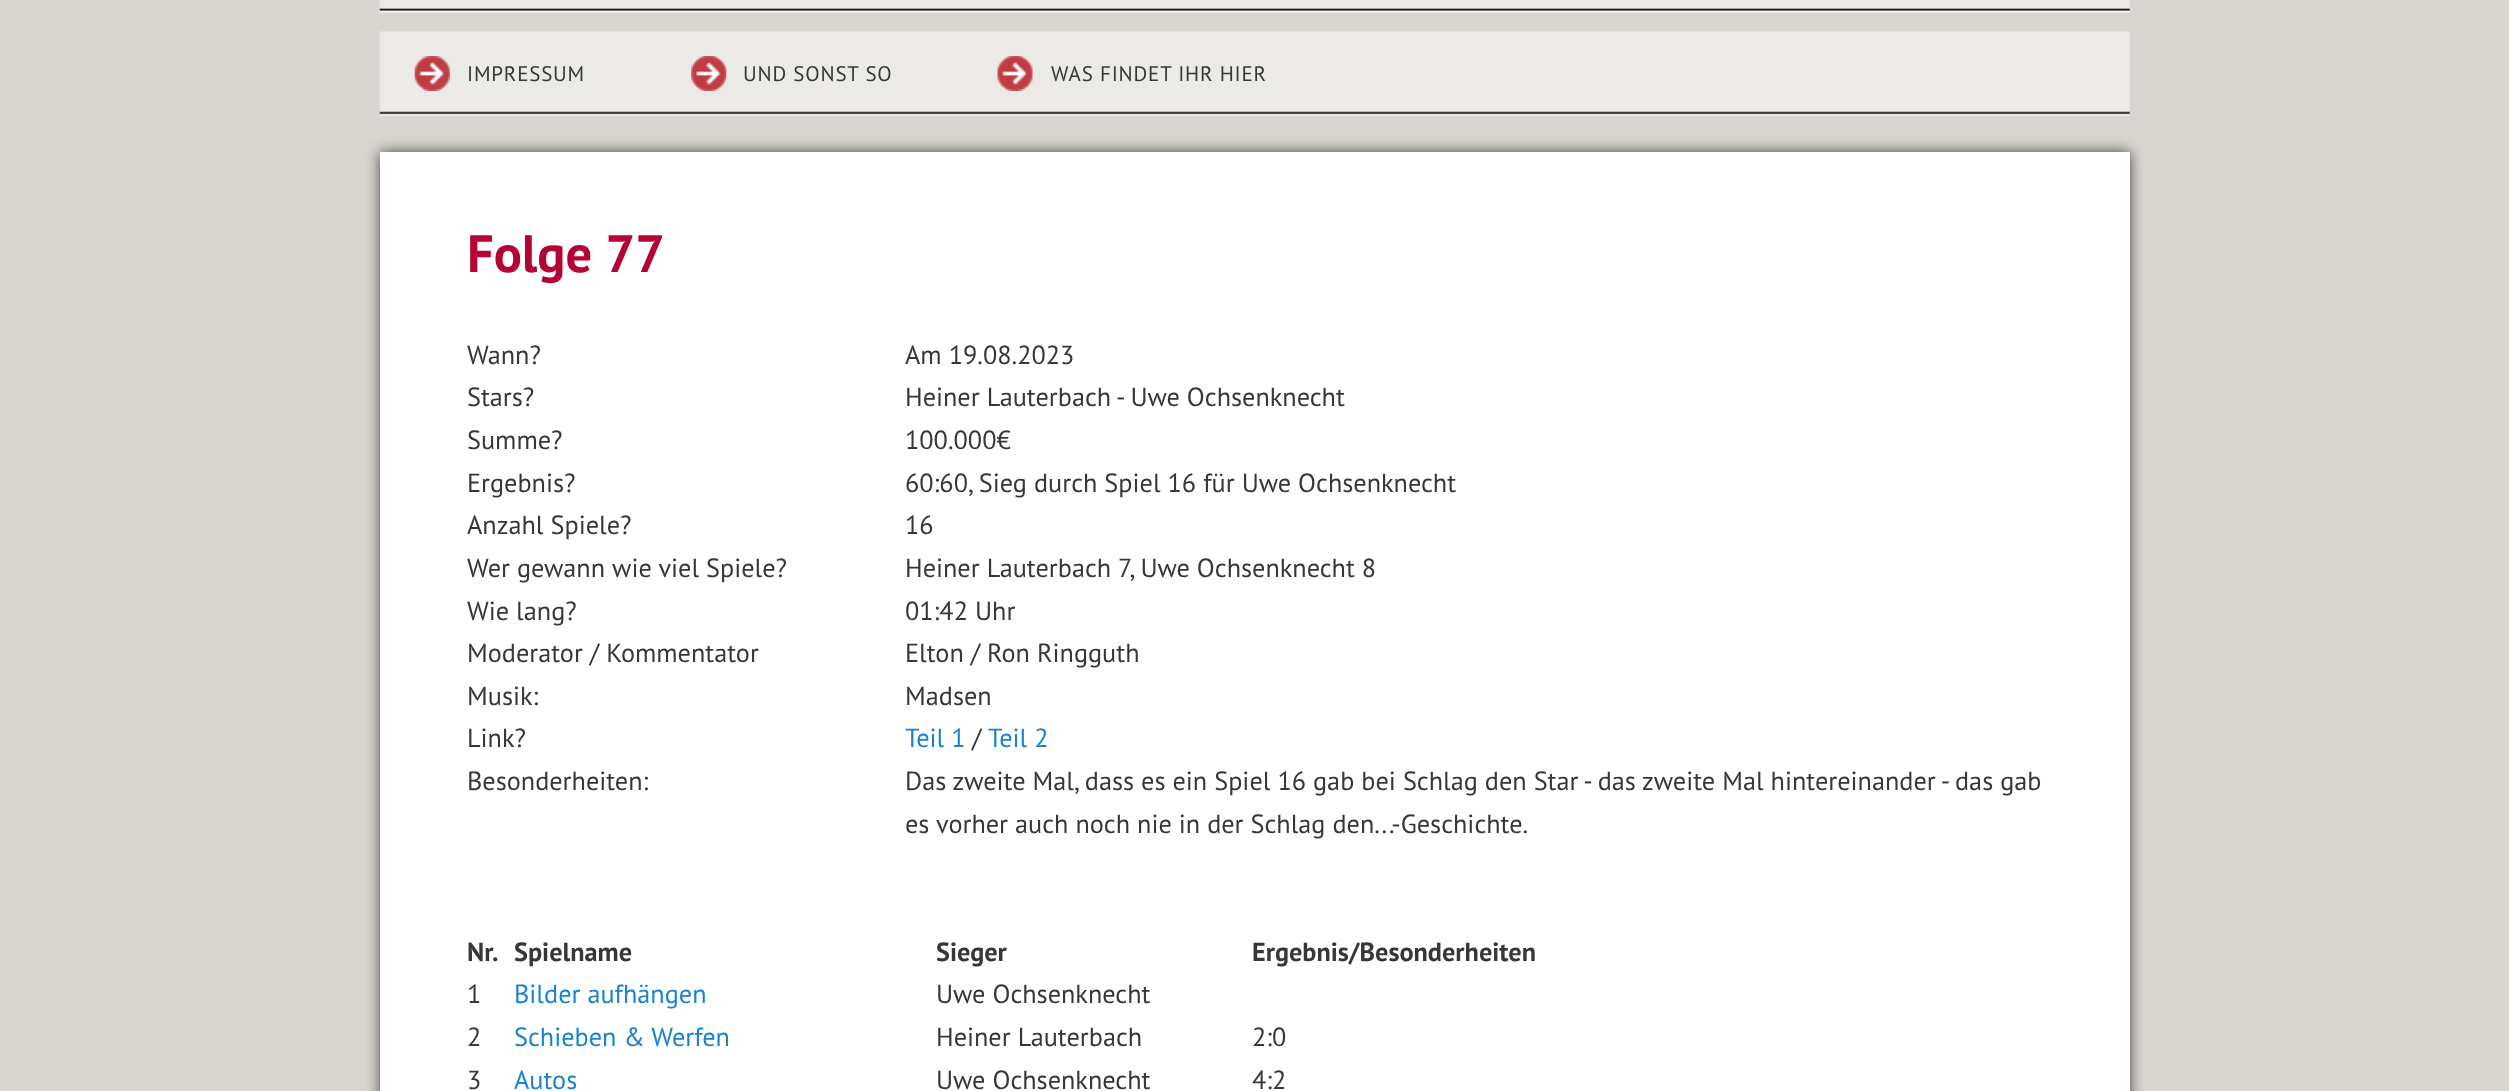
<svg xmlns="http://www.w3.org/2000/svg" width="2509" height="1091">
<style>
.a{font:21px PT Sans;letter-spacing:0.8px;fill:#373737}
.b{font:bold 52.5px PT Sans;fill:#b50433}
.c{font:26.25px PT Sans;fill:#373737}
.d{font:26.25px PT Sans;fill:#1982d1}
.e{font:bold 26.25px PT Sans;fill:#373737}
</style>
<rect width="100%" height="100%" fill="#d9d6d1"/>
<image href="1.png" x="379" y="0" width="1751" height="135"/>
<image href="2.png" x="414" y="56" width="36" height="35"/>
<image href="3.png" x="691" y="56" width="36" height="35"/>
<image href="4.png" x="997" y="56" width="36" height="35"/>
<path fill="#000000b3" filter="blur(7px)" d="M380 152h1750v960H380z"/>
<path fill="#fff" d="M380 152h1750v939H380z"/>
<text class="a" x="467" y="81">IMPRESSUM</text>
<text class="a" x="743" y="81">UND SONST SO</text>
<text class="a" x="1051" y="81">WAS FINDET IHR HIER</text>
<text class="b" x="467" y="272">Folge 77</text>
<text class="c" x="467" y="364">Wann?</text>
<text class="c" x="905" y="364">Am 19.08.2023</text>
<text class="c" x="467" y="406">Stars?</text>
<text class="c" x="905" y="406">Heiner Lauterbach - Uwe Ochsenknecht</text>
<text class="c" x="467" y="449">Summe?</text>
<text class="c" x="905" y="449">100.000€</text>
<text class="c" x="467" y="492">Ergebnis?</text>
<text class="c" x="905" y="492">60:60, Sieg durch Spiel 16 für Uwe Ochsenknecht</text>
<text class="c" x="467" y="534">Anzahl Spiele?</text>
<text class="c" x="905" y="534">16</text>
<text class="c" x="467" y="577">Wer gewann wie viel Spiele?</text>
<text class="c" x="905" y="577">Heiner Lauterbach 7, Uwe Ochsenknecht 8</text>
<text class="c" x="467" y="620">Wie lang?</text>
<text class="c" x="905" y="620">01:42 Uhr</text>
<text class="c" x="467" y="662">Moderator / Kommentator</text>
<text class="c" x="905" y="662">Elton / Ron Ringguth</text>
<text class="c" x="467" y="705">Musik:</text>
<text class="c" x="905" y="705">Madsen</text>
<text class="c" x="467" y="747">Link?</text>
<text class="d" x="905" y="747">Teil 1</text>
<text class="c" x="972" y="747">/</text>
<text class="d" x="988" y="747">Teil 2</text>
<text class="c" x="467" y="790">Besonderheiten:</text>
<text class="c" x="905" y="790">Das zweite Mal, dass es ein Spiel 16 gab bei Schlag den Star - das zweite Mal hintereinander - das gab</text>
<text class="c" x="905" y="833">es vorher auch noch nie in der Schlag den...-Geschichte.</text>
<text class="e" x="467" y="961">Nr.</text>
<text class="e" x="514" y="961">Spielname</text>
<text class="e" x="936" y="961">Sieger</text>
<text class="e" x="1252" y="961">Ergebnis/Besonderheiten</text>
<text class="c" x="467" y="1003">1</text>
<text class="d" x="514" y="1003">Bilder aufhängen</text>
<text class="c" x="936" y="1003">Uwe Ochsenknecht</text>
<text class="c" x="467" y="1046">2</text>
<text class="d" x="514" y="1046">Schieben &amp; Werfen</text>
<text class="c" x="936" y="1046">Heiner Lauterbach</text>
<text class="c" x="1252" y="1046">2:0</text>
<text class="c" x="467" y="1089">3</text>
<text class="d" x="514" y="1089">Autos</text>
<text class="c" x="936" y="1089">Uwe Ochsenknecht</text>
<text class="c" x="1252" y="1089">4:2</text>
</svg>
